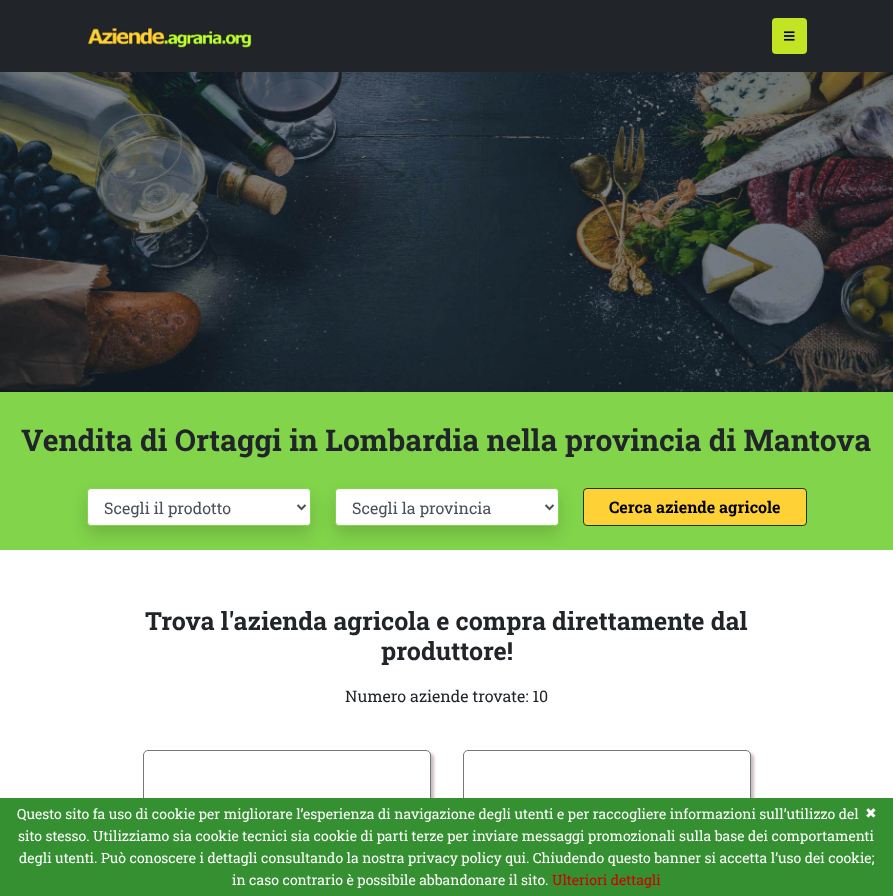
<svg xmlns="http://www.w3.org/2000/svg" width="893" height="896">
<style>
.a{font:bold 30px Roboto Slab;fill:#212529}
.b{font:16px Roboto Slab;fill:#495057}
.c{font:bold 16px Roboto Slab;fill:#000}
.d{font:bold 25px Roboto Slab;fill:#212529}
.e{font:16px Roboto Slab;fill:#212529}
.f{font:14px Roboto Slab;fill:#fff}
.g{font:14px DejaVu Sans;fill:#fff}
.h{font:14px Roboto Slab;fill:#cd0000}
</style>
<rect width="100%" height="100%" fill="#fff"/>
<path fill="#212529" d="M0 0h893v72H0z"/>
<image href="1.png" x="87" y="28" width="165" height="20"/>
<rect fill="#c2e423" x="772" y="18" width="35" height="36" rx="4"/>
<image href="2.png" x="784" y="31" width="11" height="10"/>
<image href="3.png" x="0" y="72" width="893" height="320"/>
<path fill="#82d44b" d="M0 392h893v158H0z"/>
<rect fill="#00000026" filter="blur(8px)" x="87" y="496" width="224" height="38" rx="4"/>
<rect fill="#fff" stroke="#82d44b" x="87.5" y="488.5" width="223" height="37" rx="3.5"/>
<path fill="none" stroke="#495057" stroke-width="2" d="M297.5 505l4 4l4-4"/>
<rect fill="#00000026" filter="blur(8px)" x="335" y="496" width="224" height="38" rx="4"/>
<rect fill="#fff" stroke="#82d44b" x="335.5" y="488.5" width="223" height="37" rx="3.5"/>
<path fill="none" stroke="#495057" stroke-width="2" d="M545.5 505l4 4l4-4"/>
<rect fill="#fed136" stroke="#1c3806" x="583.5" y="488.5" width="223" height="37" rx="3.5"/>
<rect fill="#c9bdbd" filter="blur(1.5px)" x="146" y="753" width="288" height="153" rx="5"/>
<rect fill="#fff" stroke="#777778" x="143.5" y="750.5" width="287" height="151" rx="4.5"/>
<rect fill="#c9bdbd" filter="blur(1.5px)" x="466" y="753" width="288" height="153" rx="5"/>
<rect fill="#fff" stroke="#777778" x="463.5" y="750.5" width="287" height="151" rx="4.5"/>
<path fill="#349030" d="M0 798h893v98H0z"/>
<text class="a" x="21" y="451">Vendita di Ortaggi in Lombardia nella provincia di Mantova</text>
<text class="b" x="104" y="514">Scegli il prodotto</text>
<text class="b" x="352" y="514">Scegli la provincia</text>
<text class="c" x="609" y="513">Cerca aziende agricole</text>
<text class="d" x="145" y="630">Trova l'azienda agricola e compra direttamente dal</text>
<text class="d" x="381" y="660">produttore!</text>
<text class="e" x="345" y="702">Numero aziende trovate: 10</text>
<text class="f" x="17" y="819">Questo sito fa uso di cookie per migliorare l’esperienza di navigazione degli utenti e per raccogliere informazioni sull’utilizzo del</text>
<text class="g" x="865" y="818">✖</text>
<text class="f" x="18" y="841">sito stesso. Utilizziamo sia cookie tecnici sia cookie di parti terze per inviare messaggi promozionali sulla base dei comportamenti</text>
<text class="f" x="19" y="863">degli utenti. Può conoscere i dettagli consultando la nostra privacy policy qui. Chiudendo questo banner si accetta l’uso dei cookie;</text>
<text class="f" x="232" y="885">in caso contrario è possibile abbandonare il sito.</text>
<text class="h" x="552" y="885">Ulteriori dettagli</text>
</svg>
